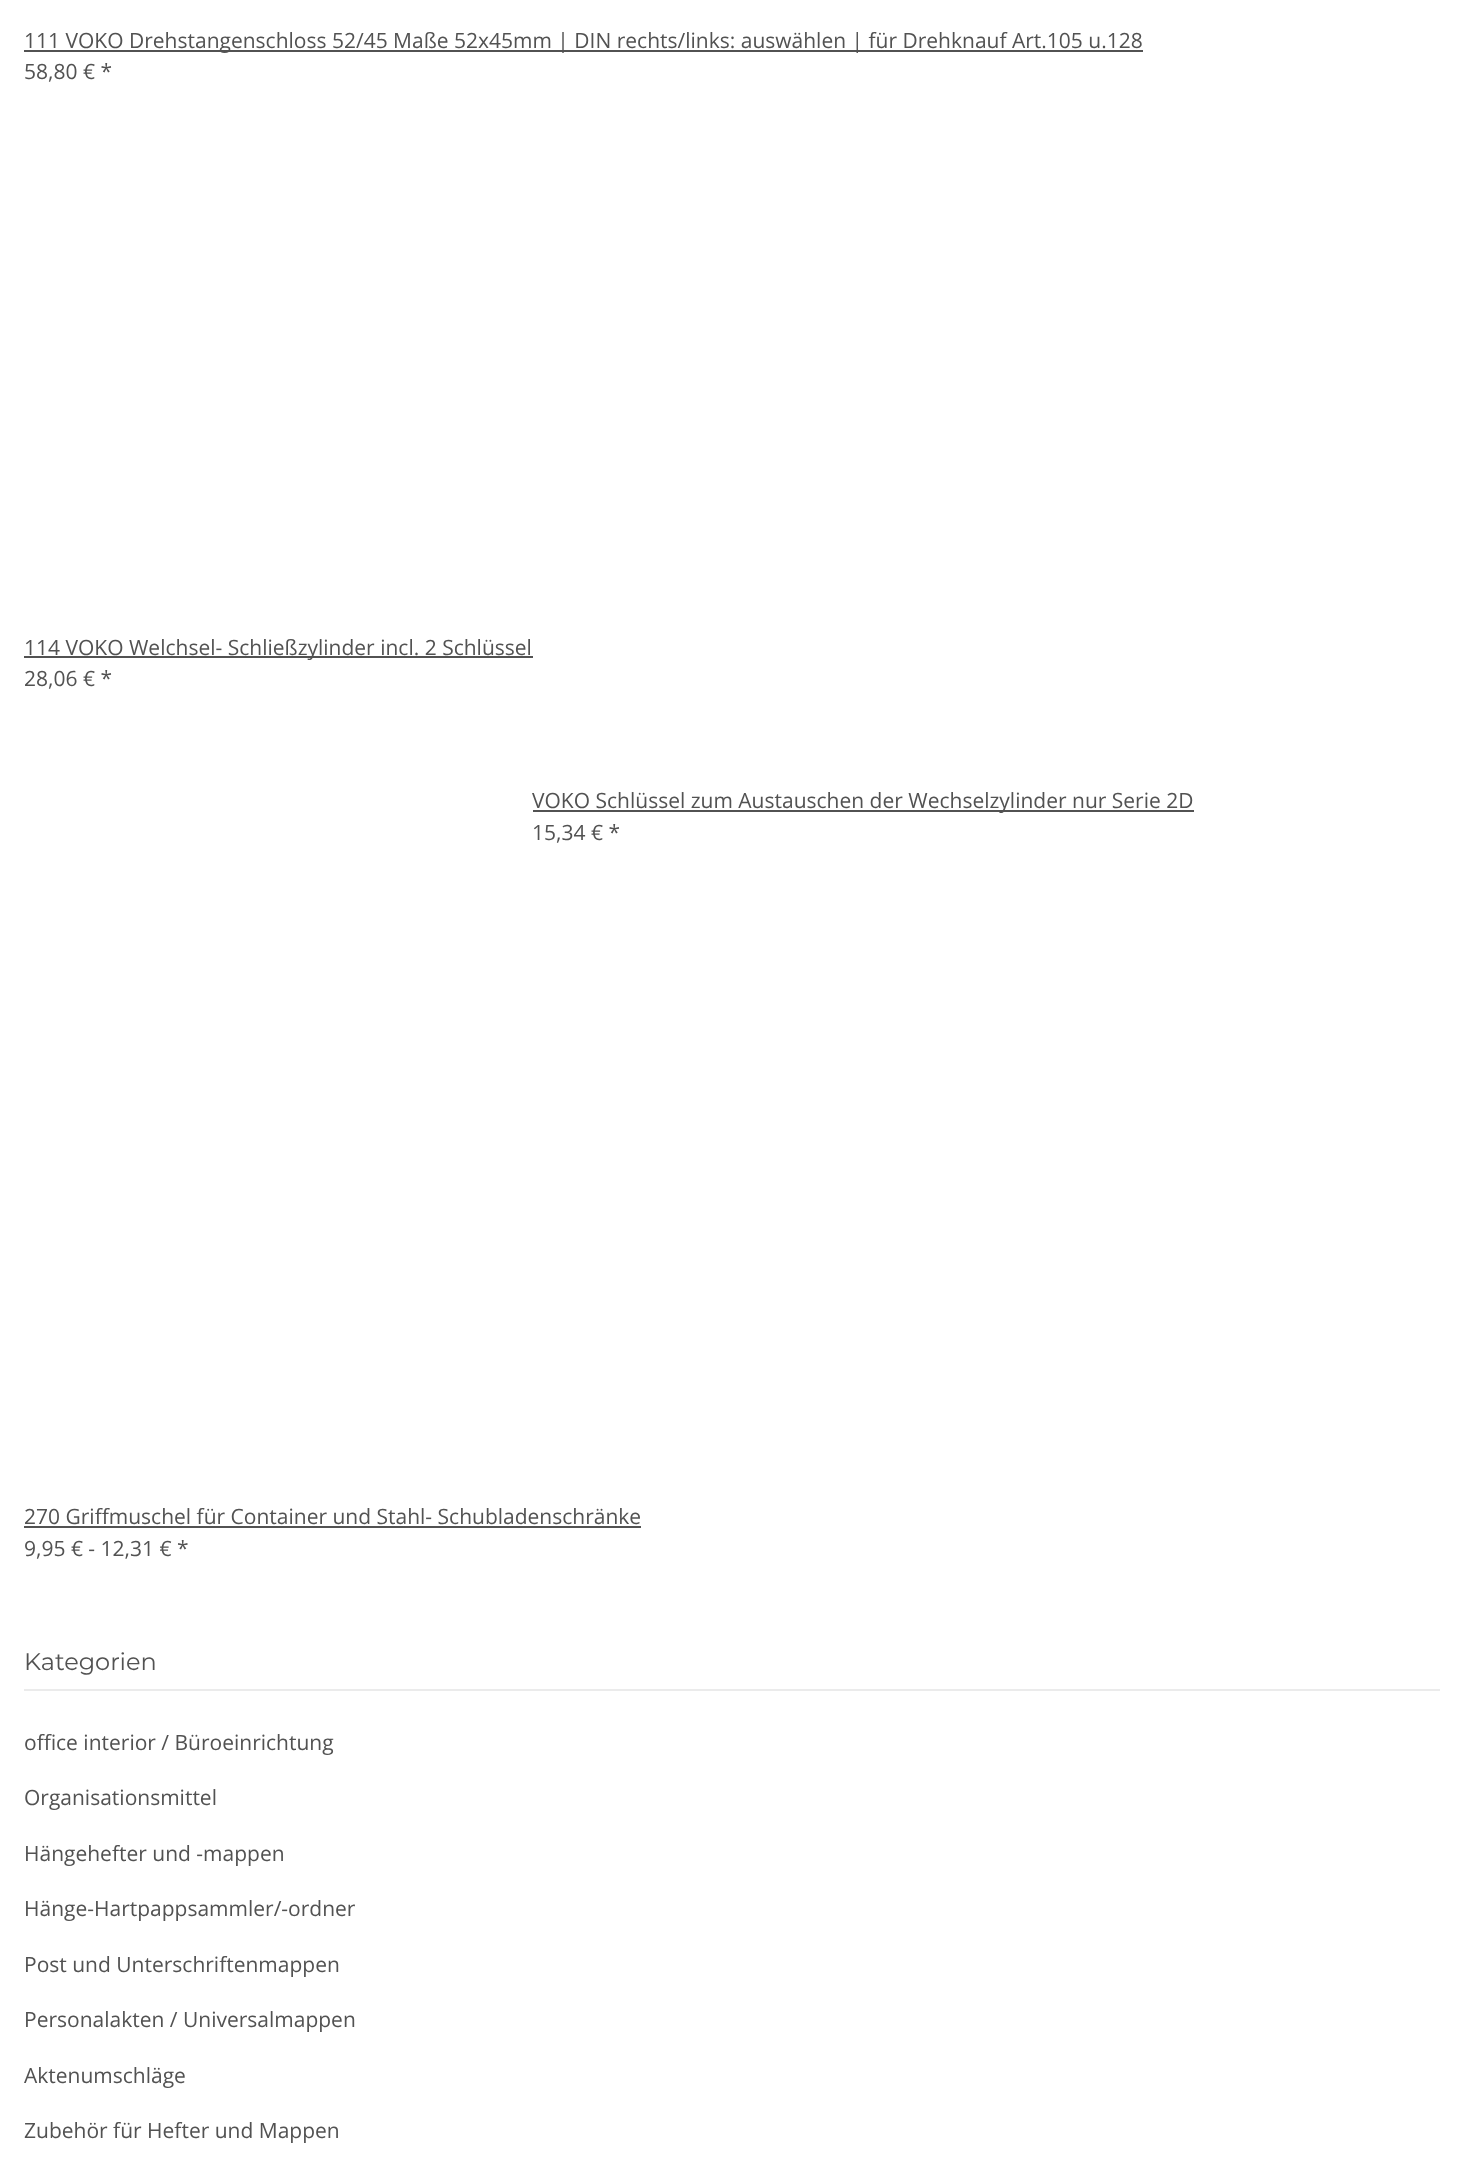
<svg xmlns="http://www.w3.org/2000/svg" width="1463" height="2159">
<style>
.a{font:21px Open Sans;fill:#525252}
.b{font:24px Montserrat;fill:#525252}
</style>
<rect width="100%" height="100%" fill="#fff"/>
<path fill="#525252" d="M24 50h1119v2H24z"/>
<path fill="#525252" d="M24 656h509v2H24z"/>
<path fill="#525252" d="M533 810h661v2H533z"/>
<path fill="#525252" d="M24 1526h617v2H24z"/>
<path fill="#ebebeb" d="M24 1689h1416v2H24z"/>
<text class="a" x="24" y="48">111 VOKO Drehstangenschloss 52/45 Maße 52x45mm | DIN rechts/links: auswählen | für Drehknauf Art.105 u.128</text>
<text class="a" x="24" y="79">58,80 € *</text>
<text class="a" x="24" y="655">114 VOKO Welchsel- Schließzylinder incl. 2 Schlüssel</text>
<text class="a" x="24" y="686">28,06 € *</text>
<text class="a" x="532" y="808">VOKO Schlüssel zum Austauschen der Wechselzylinder nur Serie 2D</text>
<text class="a" x="532" y="840">15,34 € *</text>
<text class="a" x="24" y="1524">270 Griffmuschel für Container und Stahl- Schubladenschränke</text>
<text class="a" x="24" y="1556">9,95 € - 12,31 € *</text>
<text class="b" x="24" y="1670">Kategorien</text>
<text class="a" x="24" y="1750">office interior / Büroeinrichtung</text>
<text class="a" x="24" y="1805">Organisationsmittel</text>
<text class="a" x="24" y="1861">Hängehefter und -mappen</text>
<text class="a" x="24" y="1916">Hänge-Hartpappsammler/-ordner</text>
<text class="a" x="24" y="1972">Post und Unterschriftenmappen</text>
<text class="a" x="24" y="2027">Personalakten / Universalmappen</text>
<text class="a" x="24" y="2083">Aktenumschläge</text>
<text class="a" x="24" y="2138">Zubehör für Hefter und Mappen</text>
</svg>
